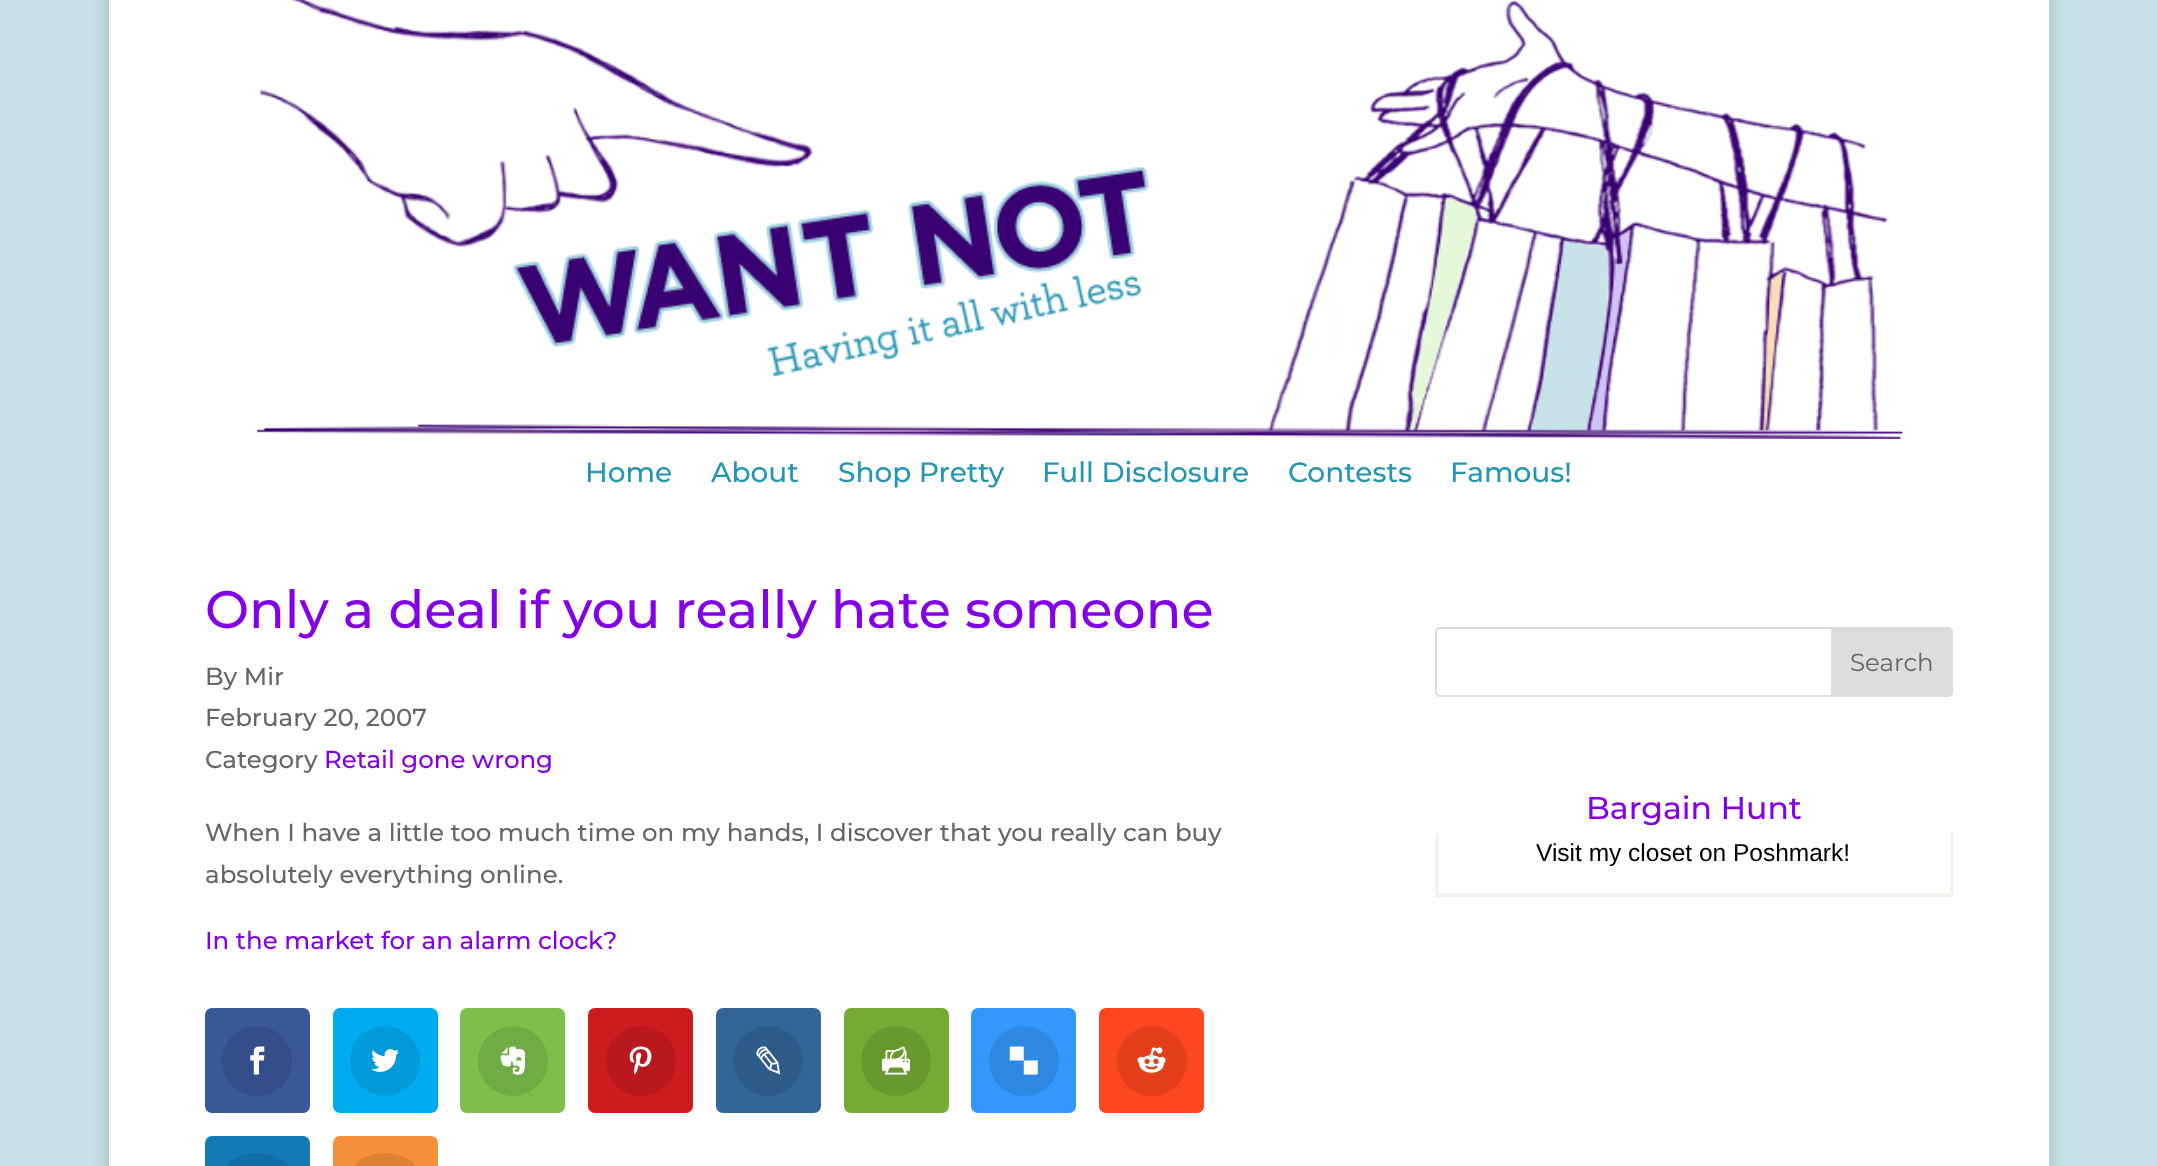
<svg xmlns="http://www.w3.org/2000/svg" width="2157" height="1166">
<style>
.a{font:100 28px Montserrat;fill:#2495b5}
.b{font:100 52.5px Montserrat;fill:#8300e9}
.c{font:100 24.5px Montserrat;fill:#666}
.d{font:100 24.5px Montserrat;fill:#8300e9}
.e{font:100 24.5px 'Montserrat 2';fill:#666}
.f{font:100 31.5px Montserrat;fill:#8300e9}
.g{font:24.5px Liberation Sans;fill:#000}
</style>
<rect width="100%" height="100%" fill="#c8e2ea"/>
<path fill="#00000033" filter="blur(9px)" d="M109 -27h1940v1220H109z"/>
<path fill="#fff" d="M109 0h1940v520H109z"/>
<image href="1.png" x="257" y="0" width="1646" height="439"/>
<path fill="#fff" d="M109 520h1940v646H109z"/>
<rect fill="#3a579a" x="205" y="1008" width="105" height="105" rx="7"/>
<circle fill="#344e8b" cx="257" cy="1061" r="35"/>
<image href="2.png" x="250" y="1046" width="15" height="29"/>
<rect fill="#00abf0" x="333" y="1008" width="105" height="105" rx="7"/>
<circle fill="#009ad8" cx="385" cy="1061" r="35"/>
<image href="3.png" x="371" y="1049" width="28" height="23"/>
<rect fill="#7cbf4b" x="460" y="1008" width="105" height="105" rx="7"/>
<circle fill="#70ac44" cx="513" cy="1061" r="35"/>
<image href="4.png" x="500" y="1046" width="25" height="29"/>
<rect fill="#cd1c1f" x="588" y="1008" width="105" height="105" rx="7"/>
<circle fill="#b9191c" cx="641" cy="1061" r="35"/>
<image href="5.png" x="629" y="1046" width="23" height="29"/>
<rect fill="#336697" x="716" y="1008" width="105" height="105" rx="7"/>
<circle fill="#2e5c88" cx="768" cy="1061" r="35"/>
<image href="6.png" x="756" y="1046" width="25" height="29"/>
<rect fill="#75aa33" x="844" y="1008" width="105" height="105" rx="7"/>
<circle fill="#69992e" cx="896" cy="1061" r="35"/>
<image href="7.png" x="882" y="1046" width="28" height="29"/>
<rect fill="#3398fc" x="971" y="1008" width="105" height="105" rx="7"/>
<circle fill="#2e89e3" cx="1024" cy="1061" r="35"/>
<image href="8.png" x="1009" y="1046" width="29" height="29"/>
<rect fill="#fc461e" x="1099" y="1008" width="105" height="105" rx="7"/>
<circle fill="#e33f1b" cx="1152" cy="1061" r="35"/>
<image href="9.png" x="1137" y="1047" width="29" height="26"/>
<rect fill="#127bb6" x="205" y="1136" width="105" height="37" rx="7"/>
<rect fill="#106fa4" x="222" y="1153" width="70" height="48" rx="35"/>
<rect fill="#f59038" x="333" y="1136" width="105" height="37" rx="7"/>
<rect fill="#dd8232" x="350" y="1153" width="70" height="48" rx="35"/>
<rect fill="none" stroke="#ddd" stroke-width="2" x="1436" y="628" width="516" height="68" rx="4"/>
<path fill="#ddd" stroke="#ddd" stroke-width="2" d="M1832 628h116c2 0 4 2 4 4v60c0 2-2 4-4 4h-116z"/>
<path fill="#f5f2ee" d="M1950 833h4v63H1950z"/>
<path fill="#f5f2ee" d="M1435 893h518v4H1435z"/>
<path fill="#f5f2ee" d="M1435 833h4v63H1435z"/>
<text class="a" x="585" y="482">Home</text>
<text class="a" x="711" y="482">About</text>
<text class="a" x="838" y="482">Shop Pretty</text>
<text class="a" x="1042" y="482">Full Disclosure</text>
<text class="a" x="1288" y="482">Contests</text>
<text class="a" x="1450" y="482">Famous!</text>
<text class="b" x="205" y="628">Only a deal if you really hate someone</text>
<text class="c" x="205" y="685">By Mir</text>
<text class="c" x="205" y="726">February 20, 2007</text>
<text class="c" x="205" y="768">Category</text>
<text class="d" x="324" y="768">Retail gone wrong</text>
<text class="c" x="205" y="841">When I have a little too much time on my hands, I discover that you really can buy</text>
<text class="c" x="205" y="883">absolutely everything online.</text>
<text class="d" x="205" y="949">In the market for an alarm clock?</text>
<text class="e" x="1850" y="671">Search</text>
<text class="f" x="1586" y="819">Bargain Hunt</text>
<text class="g" x="1536" y="861">Visit my closet on Poshmark!</text>
</svg>
